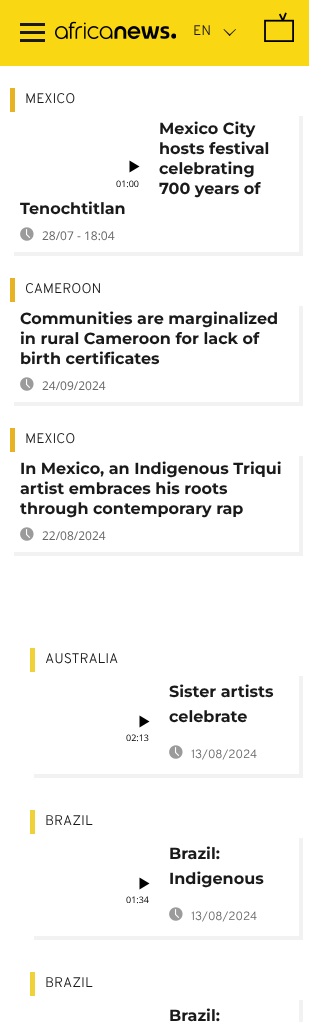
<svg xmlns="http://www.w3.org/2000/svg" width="309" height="1022">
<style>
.a{font:300 14px Overpass;fill:#1a1a1a}
.b{font:100 16px Montserrat;fill:#1a1a1a}
.c{font:12px Open Sans;fill:#666}
.d{font:9px Open Sans;fill:#000}
.e{font:300 12px Overpass;fill:#666}
</style>
<rect width="100%" height="100%" fill="#fff"/>
<path fill="#f9d713" d="M0 0h309v66H0z"/>
<path fill="#1a1a1a" d="M20 31h25v3H20z"/>
<path fill="#1a1a1a" d="M20 23h25v3H20z"/>
<path fill="#1a1a1a" d="M20 39h25v3H20z"/>
<image href="1.png" x="55" y="21" width="121" height="19"/>
<path fill="#1a1a1a" d="M229 35l6.5-6l.5 .5l-6.5 6.5z"/>
<path fill="#1a1a1a" d="M223.5 29.5l.5-.5l6.5 6l-1 1z"/>
<image href="2.png" x="264" y="12" width="30" height="30"/>
<path fill="#f2f2f2" d="M14 252v4h289v-140h-4v136z"/>
<path fill="#e7b322" d="M10 88h5v24H10z"/>
<image href="3.png" x="20" y="227" width="14" height="14"/>
<path fill="#000" d="M139.5 166.5l-10 6v-12z"/>
<path fill="#f2f2f2" d="M14 402v4h289v-100h-4v96z"/>
<path fill="#e7b322" d="M10 278h5v24H10z"/>
<image href="3.png" x="20" y="377" width="14" height="14"/>
<path fill="#f2f2f2" d="M14 552v4h289v-100h-4v96z"/>
<path fill="#e7b322" d="M10 428h5v24H10z"/>
<image href="3.png" x="20" y="527" width="14" height="14"/>
<path fill="#f2f2f2" d="M34 774v4h269v-102h-4v98z"/>
<path fill="#f0d138" d="M30 648h5v24H30z"/>
<image href="3.png" x="169" y="745" width="14" height="14"/>
<path fill="#000" d="M149.5 721.5l-10 6v-12z"/>
<path fill="#f2f2f2" d="M34 936v4h269v-102h-4v98z"/>
<path fill="#f0d138" d="M30 810h5v24H30z"/>
<image href="3.png" x="169" y="907" width="14" height="14"/>
<path fill="#000" d="M149.5 883.5l-10 6v-12z"/>
<path fill="#f2f2f2" d="M34 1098v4h269v-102h-4v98z"/>
<path fill="#f0d138" d="M30 972h5v24H30z"/>
<text class="a" x="193" y="35">EN</text>
<text class="a" x="25" y="103">MEXICO</text>
<text class="b" x="159" y="134">Mexico City</text>
<text class="b" x="159" y="154">hosts festival</text>
<text class="b" x="159" y="174">celebrating</text>
<text class="b" x="159" y="194">700 years of</text>
<text class="b" x="20" y="214">Tenochtitlan</text>
<text class="c" x="42" y="240">28/07 - 18:04</text>
<text class="d" x="116" y="187">01:00</text>
<text class="a" x="25" y="293">CAMEROON</text>
<text class="b" x="20" y="324">Communities are marginalized</text>
<text class="b" x="20" y="344">in rural Cameroon for lack of</text>
<text class="b" x="20" y="364">birth certificates</text>
<text class="c" x="42" y="390">24/09/2024</text>
<text class="a" x="25" y="443">MEXICO</text>
<text class="b" x="20" y="474">In Mexico, an Indigenous Triqui</text>
<text class="b" x="20" y="494">artist embraces his roots</text>
<text class="b" x="20" y="514">through contemporary rap</text>
<text class="c" x="42" y="540">22/08/2024</text>
<text class="a" x="45" y="663">AUSTRALIA</text>
<text class="b" x="169" y="697">Sister artists</text>
<text class="b" x="169" y="722">celebrate</text>
<text class="e" x="191" y="758">13/08/2024</text>
<text class="d" x="126" y="741">02:13</text>
<text class="a" x="45" y="825">BRAZIL</text>
<text class="b" x="169" y="859">Brazil:</text>
<text class="b" x="169" y="884">Indigenous</text>
<text class="e" x="191" y="920">13/08/2024</text>
<text class="d" x="126" y="903">01:34</text>
<text class="a" x="45" y="987">BRAZIL</text>
<text class="b" x="169" y="1021">Brazil:</text>
</svg>
